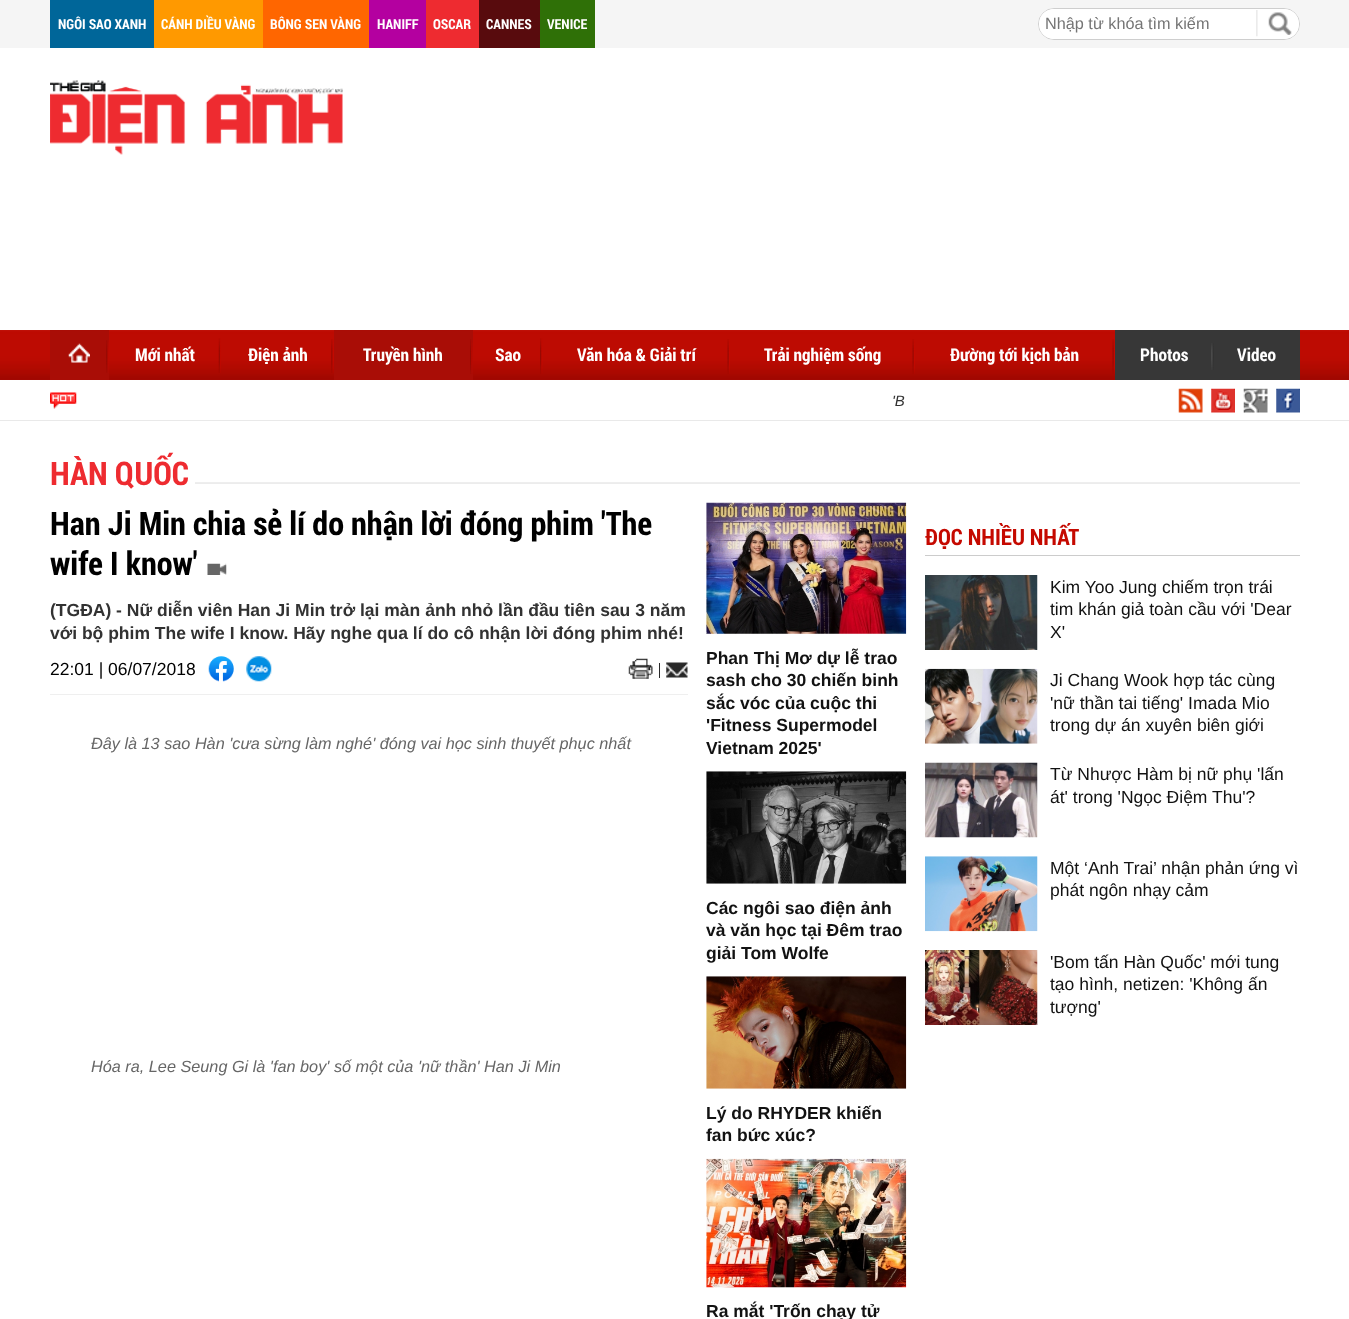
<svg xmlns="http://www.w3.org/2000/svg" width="1349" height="1319">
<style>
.a{font:bold 13.75px Roboto Condensed;fill:#fff}
.b{font:16.25px Liberation Sans;fill:#757575}
.c{font:bold 17.5px Roboto Condensed;fill:#fff}
.d{font:italic 15px Liberation Sans;fill:#323232}
.e{font:bold 32.5px Roboto Condensed;fill:#ee2b30}
.f{font:bold 32.5px Roboto Condensed;fill:#000}
.g{font:bold 17.5px Liberation Sans;fill:#323232}
.h{font:17.5px Liberation Sans;fill:#000}
.i{font:italic 16.25px Liberation Sans;fill:#666}
.j{font:bold 17.5px Liberation Sans;fill:#121212}
.k{font:bold 22.5px Roboto Condensed;fill:#c50900}
.l{font:17.5px Liberation Sans;fill:#121212}
</style>
<rect width="100%" height="100%" fill="#fff"/>
<path fill="#f5f5f5" d="M0 0h1349v48H0z"/>
<path fill="#069" d="M50 0h104v48H50z"/>
<path fill="#f90" d="M154 0h109v48H154z"/>
<path fill="#f60" d="M263 0h106v48H263z"/>
<path fill="#b400a0" d="M369 0h57v48H369z"/>
<path fill="#ee2b30" d="M426 0h53v48H426z"/>
<path fill="#580b0d" d="M479 0h61v48H479z"/>
<path fill="#2f7007" d="M540 0h55v48H540z"/>
<rect fill="#fff" stroke="#cecece" x="1038.5" y="8.5" width="261" height="31" rx="15.5"/>
<path fill="#fff" d="M1054 9h204v30h-204c-8.5 0-15-6.5-15-15c0-8.5 6.5-15 15-15z"/>
<image href="1.png" x="1256" y="10" width="2" height="27"/>
<path fill="#fff" d="M1261 9h23c8.5 0 15 6.5 15 15c0 8.5-6.5 15-15 15h-23z"/>
<image href="2.png" x="1268" y="12" width="24" height="23"/>
<image href="3.png" x="50" y="80" width="293" height="75"/>
<image href="4.png" x="0" y="330" width="1349" height="50"/>
<path fill="#a90d06" d="M50 330h59v50H50z"/>
<image href="5.png" x="106" y="340" width="3" height="33"/>
<image href="6.png" x="68" y="343" width="22" height="20"/>
<image href="7.png" x="218" y="338" width="3" height="35"/>
<image href="8.png" x="331" y="339" width="3" height="34"/>
<path fill="#a90d06" d="M334 330h139v50H334z"/>
<image href="9.png" x="470" y="339" width="3" height="35"/>
<image href="10.png" x="540" y="338" width="3" height="36"/>
<image href="11.png" x="727" y="339" width="3" height="35"/>
<image href="11.png" x="912" y="339" width="3" height="35"/>
<image href="11.png" x="1112" y="339" width="3" height="35"/>
<path fill="#373737" d="M1115 330h185v50H1115z"/>
<image href="12.png" x="1211" y="343" width="3" height="27"/>
<path fill="#e9e9e9" d="M0 420h1349v1H0z"/>
<image href="13.png" x="50" y="392" width="27" height="17"/>
<image href="14.png" x="1178" y="388" width="25" height="25"/>
<image href="15.png" x="1211" y="388" width="24" height="25"/>
<image href="16.png" x="1243" y="388" width="25" height="25"/>
<image href="17.png" x="1276" y="388" width="24" height="25"/>
<image href="18.png" x="195" y="482" width="1105" height="2"/>
<image href="19.png" x="207" y="563" width="20" height="12"/>
<path fill="#efefef" d="M50 694h638v1H50z"/>
<image href="20.png" x="208" y="656" width="26" height="26"/>
<image href="21.png" x="246" y="656" width="26" height="26"/>
<image href="22.png" x="628" y="658" width="25" height="21"/>
<path fill="#2a2a2a" d="M659 663h1v15H659z"/>
<image href="23.png" x="666" y="662" width="22" height="16"/>
<image href="24.png" x="706" y="502" width="201" height="132"/>
<image href="25.png" x="706" y="771" width="201" height="113"/>
<image href="26.png" x="706" y="976" width="201" height="113"/>
<image href="27.png" x="706" y="1158" width="201" height="130"/>
<path fill="#ccc" d="M925 555h375v1H925z"/>
<image href="28.png" x="925" y="575" width="113" height="75"/>
<image href="29.png" x="925" y="668" width="113" height="76"/>
<image href="30.png" x="925" y="762" width="113" height="76"/>
<image href="31.png" x="925" y="856" width="113" height="76"/>
<image href="32.png" x="925" y="950" width="113" height="75"/>
<text class="a" x="58" y="29">NGÔI SAO XANH</text>
<text class="a" x="161" y="29">CÁNH DIỀU VÀNG</text>
<text class="a" x="270" y="29">BÔNG SEN VÀNG</text>
<text class="a" x="377" y="29">HANIFF</text>
<text class="a" x="433" y="29">OSCAR</text>
<text class="a" x="486" y="29">CANNES</text>
<text class="a" x="547" y="29">VENICE</text>
<text class="b" x="1045" y="29">Nhập từ khóa tìm kiếm</text>
<text class="c" x="135" y="361">Mới nhất</text>
<text class="c" x="248" y="361">Điện ảnh</text>
<text class="c" x="363" y="361">Truyền hình</text>
<text class="c" x="495" y="361">Sao</text>
<text class="c" x="577" y="361">Văn hóa &amp; Giải trí</text>
<text class="c" x="764" y="361">Trải nghiệm sống</text>
<text class="c" x="950" y="361">Đường tới kịch bản</text>
<text class="c" x="1140" y="361">Photos</text>
<text class="c" x="1237" y="361">Video</text>
<text class="d" x="892" y="406">'B</text>
<text class="e" x="50" y="485">HÀN QUỐC</text>
<text class="f" x="50" y="535">Han Ji Min chia sẻ lí do nhận lời đóng phim 'The</text>
<text class="f" x="50" y="575">wife I know'</text>
<text class="g" x="50" y="616">(TGĐA) - Nữ diễn viên Han Ji Min trở lại màn ảnh nhỏ lần đầu tiên sau 3 năm</text>
<text class="g" x="50" y="639">với bộ phim The wife I know. Hãy nghe qua lí do cô nhận lời đóng phim nhé!</text>
<text class="h" x="50" y="675">22:01 | 06/07/2018</text>
<text class="i" x="91" y="749">Đây là 13 sao Hàn 'cưa sừng làm nghé' đóng vai học sinh thuyết phục nhất</text>
<text class="i" x="91" y="1072">Hóa ra, Lee Seung Gi là 'fan boy' số một của 'nữ thần' Han Ji Min</text>
<text class="j" x="706" y="664">Phan Thị Mơ dự lễ trao</text>
<text class="j" x="706" y="686">sash cho 30 chiến binh</text>
<text class="j" x="706" y="709">sắc vóc của cuộc thi</text>
<text class="j" x="706" y="731">'Fitness Supermodel</text>
<text class="j" x="706" y="754">Vietnam 2025'</text>
<text class="j" x="706" y="914">Các ngôi sao điện ảnh</text>
<text class="j" x="706" y="936">và văn học tại Đêm trao</text>
<text class="j" x="706" y="959">giải Tom Wolfe</text>
<text class="j" x="706" y="1119">Lý do RHYDER khiến</text>
<text class="j" x="706" y="1141">fan bức xúc?</text>
<text class="j" x="706" y="1317">Ra mắt 'Trốn chạy tử</text>
<text class="k" x="925" y="545">ĐỌC NHIỀU NHẤT</text>
<text class="l" x="1050" y="593">Kim Yoo Jung chiếm trọn trái</text>
<text class="l" x="1050" y="615">tim khán giả toàn cầu với 'Dear</text>
<text class="l" x="1050" y="638">X'</text>
<text class="l" x="1050" y="686">Ji Chang Wook hợp tác cùng</text>
<text class="l" x="1050" y="709">'nữ thần tai tiếng' Imada Mio</text>
<text class="l" x="1050" y="731">trong dự án xuyên biên giới</text>
<text class="l" x="1050" y="780">Từ Nhược Hàm bị nữ phụ 'lấn</text>
<text class="l" x="1050" y="803">át' trong 'Ngọc Điệm Thu'?</text>
<text class="l" x="1050" y="874">Một ‘Anh Trai’ nhận phản ứng vì</text>
<text class="l" x="1050" y="896">phát ngôn nhạy cảm</text>
<text class="l" x="1050" y="968">'Bom tấn Hàn Quốc' mới tung</text>
<text class="l" x="1050" y="990">tạo hình, netizen: 'Không ấn</text>
<text class="l" x="1050" y="1013">tượng'</text>
</svg>
